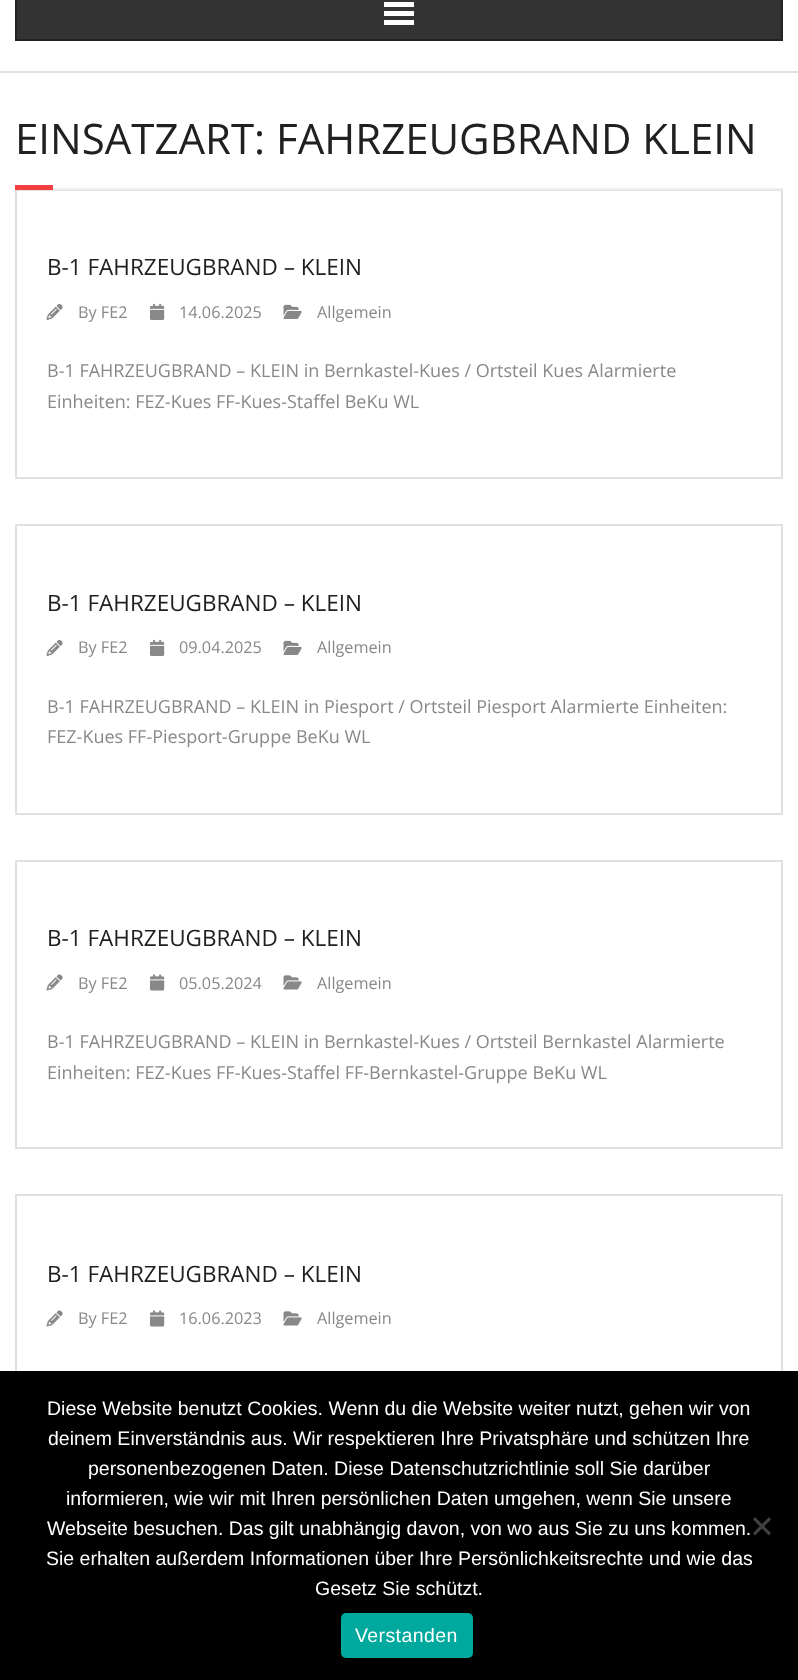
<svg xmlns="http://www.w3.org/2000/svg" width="798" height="1680">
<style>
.a{font:42px Open Sans;fill:#202020}
.b{font:22.5px Open Sans;fill:#202020}
.c{font:16.25px Open Sans;fill:#888}
.d{font:18px Open Sans;fill:#888}
.e{font:19.5px Liberation Sans;fill:#fff}
.f{font:19.5px Liberation Sans;letter-spacing:0.4px;fill:#fff}
</style>
<rect width="100%" height="100%" fill="#fff"/>
<path fill="#e0e0e0" d="M0 71h798v2H0z"/>
<path fill="#333" stroke="#222" stroke-width="2" d="M16 -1h766v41H16z"/>
<path fill="#fff" d="M384 2h30v5H384z"/>
<path fill="#fff" d="M384 11h30v5H384z"/>
<path fill="#fff" d="M384 20h30v5H384z"/>
<path fill="none" stroke="#e0e0e0" stroke-width="2" d="M16 190h766v288H16z"/>
<path fill="#f33f3f" d="M15 185h38v5H15z"/>
<path fill="#eee" d="M53 188h730v2H53z"/>
<image href="1.png" x="46" y="303" width="17" height="17"/>
<image href="2.png" x="150" y="303" width="15" height="17"/>
<image href="3.png" x="283" y="304" width="19" height="15"/>
<path fill="none" stroke="#e0e0e0" stroke-width="2" d="M16 525h766v289H16z"/>
<image href="1.png" x="46" y="639" width="17" height="17"/>
<image href="2.png" x="150" y="639" width="15" height="17"/>
<image href="3.png" x="283" y="640" width="19" height="15"/>
<path fill="none" stroke="#e0e0e0" stroke-width="2" d="M16 861h766v287H16z"/>
<image href="4.png" x="46" y="974" width="17" height="17"/>
<image href="5.png" x="150" y="974" width="15" height="17"/>
<image href="6.png" x="283" y="975" width="19" height="15"/>
<path fill="none" stroke="#e0e0e0" stroke-width="2" d="M16 1195h766v289H16z"/>
<image href="4.png" x="46" y="1310" width="17" height="17"/>
<image href="5.png" x="150" y="1310" width="15" height="17"/>
<image href="6.png" x="283" y="1311" width="19" height="15"/>
<path fill="#000" d="M0 1371h798v309H0z"/>
<path fill="#404040" d="M769 1517l2 2.5l-16 16l-2-2.5z"/>
<path fill="#404040" d="M753 1519.5l2-2.5l16 16l-2 2.5z"/>
<rect fill="#00a99d" x="341" y="1613" width="132" height="45" rx="5"/>
<text class="a" x="15" y="154">EINSATZART: FAHRZEUGBRAND KLEIN</text>
<text class="b" x="47" y="275">B-1 FAHRZEUGBRAND – KLEIN</text>
<text class="c" x="78" y="318">By FE2</text>
<text class="c" x="179" y="318">14.06.2025</text>
<text class="c" x="317" y="318">Allgemein</text>
<text class="d" x="47" y="377">B-1 FAHRZEUGBRAND – KLEIN in Bernkastel-Kues / Ortsteil Kues Alarmierte</text>
<text class="d" x="47" y="408">Einheiten: FEZ-Kues FF-Kues-Staffel BeKu WL</text>
<text class="b" x="47" y="611">B-1 FAHRZEUGBRAND – KLEIN</text>
<text class="c" x="78" y="653">By FE2</text>
<text class="c" x="179" y="653">09.04.2025</text>
<text class="c" x="317" y="653">Allgemein</text>
<text class="d" x="47" y="713">B-1 FAHRZEUGBRAND – KLEIN in Piesport / Ortsteil Piesport Alarmierte Einheiten:</text>
<text class="d" x="47" y="743">FEZ-Kues FF-Piesport-Gruppe BeKu WL</text>
<text class="b" x="47" y="946">B-1 FAHRZEUGBRAND – KLEIN</text>
<text class="c" x="78" y="989">By FE2</text>
<text class="c" x="179" y="989">05.05.2024</text>
<text class="c" x="317" y="989">Allgemein</text>
<text class="d" x="47" y="1048">B-1 FAHRZEUGBRAND – KLEIN in Bernkastel-Kues / Ortsteil Bernkastel Alarmierte</text>
<text class="d" x="47" y="1079">Einheiten: FEZ-Kues FF-Kues-Staffel FF-Bernkastel-Gruppe BeKu WL</text>
<text class="b" x="47" y="1282">B-1 FAHRZEUGBRAND – KLEIN</text>
<text class="c" x="78" y="1324">By FE2</text>
<text class="c" x="179" y="1324">16.06.2023</text>
<text class="c" x="317" y="1324">Allgemein</text>
<text class="e" x="47" y="1415">Diese Website benutzt Cookies. Wenn du die Website weiter nutzt, gehen wir von</text>
<text class="e" x="48" y="1445">deinem Einverständnis aus. Wir respektieren Ihre Privatsphäre und schützen Ihre</text>
<text class="e" x="88" y="1475">personenbezogenen Daten. Diese Datenschutzrichtlinie soll Sie darüber</text>
<text class="e" x="66" y="1505">informieren, wie wir mit Ihren persönlichen Daten umgehen, wenn Sie unsere</text>
<text class="e" x="47" y="1535">Webseite besuchen. Das gilt unabhängig davon, von wo aus Sie zu uns kommen.</text>
<text class="e" x="46" y="1565">Sie erhalten außerdem Informationen über Ihre Persönlichkeitsrechte und wie das</text>
<text class="e" x="315" y="1595">Gesetz Sie schützt.</text>
<text class="f" x="355" y="1642">Verstanden</text>
</svg>
